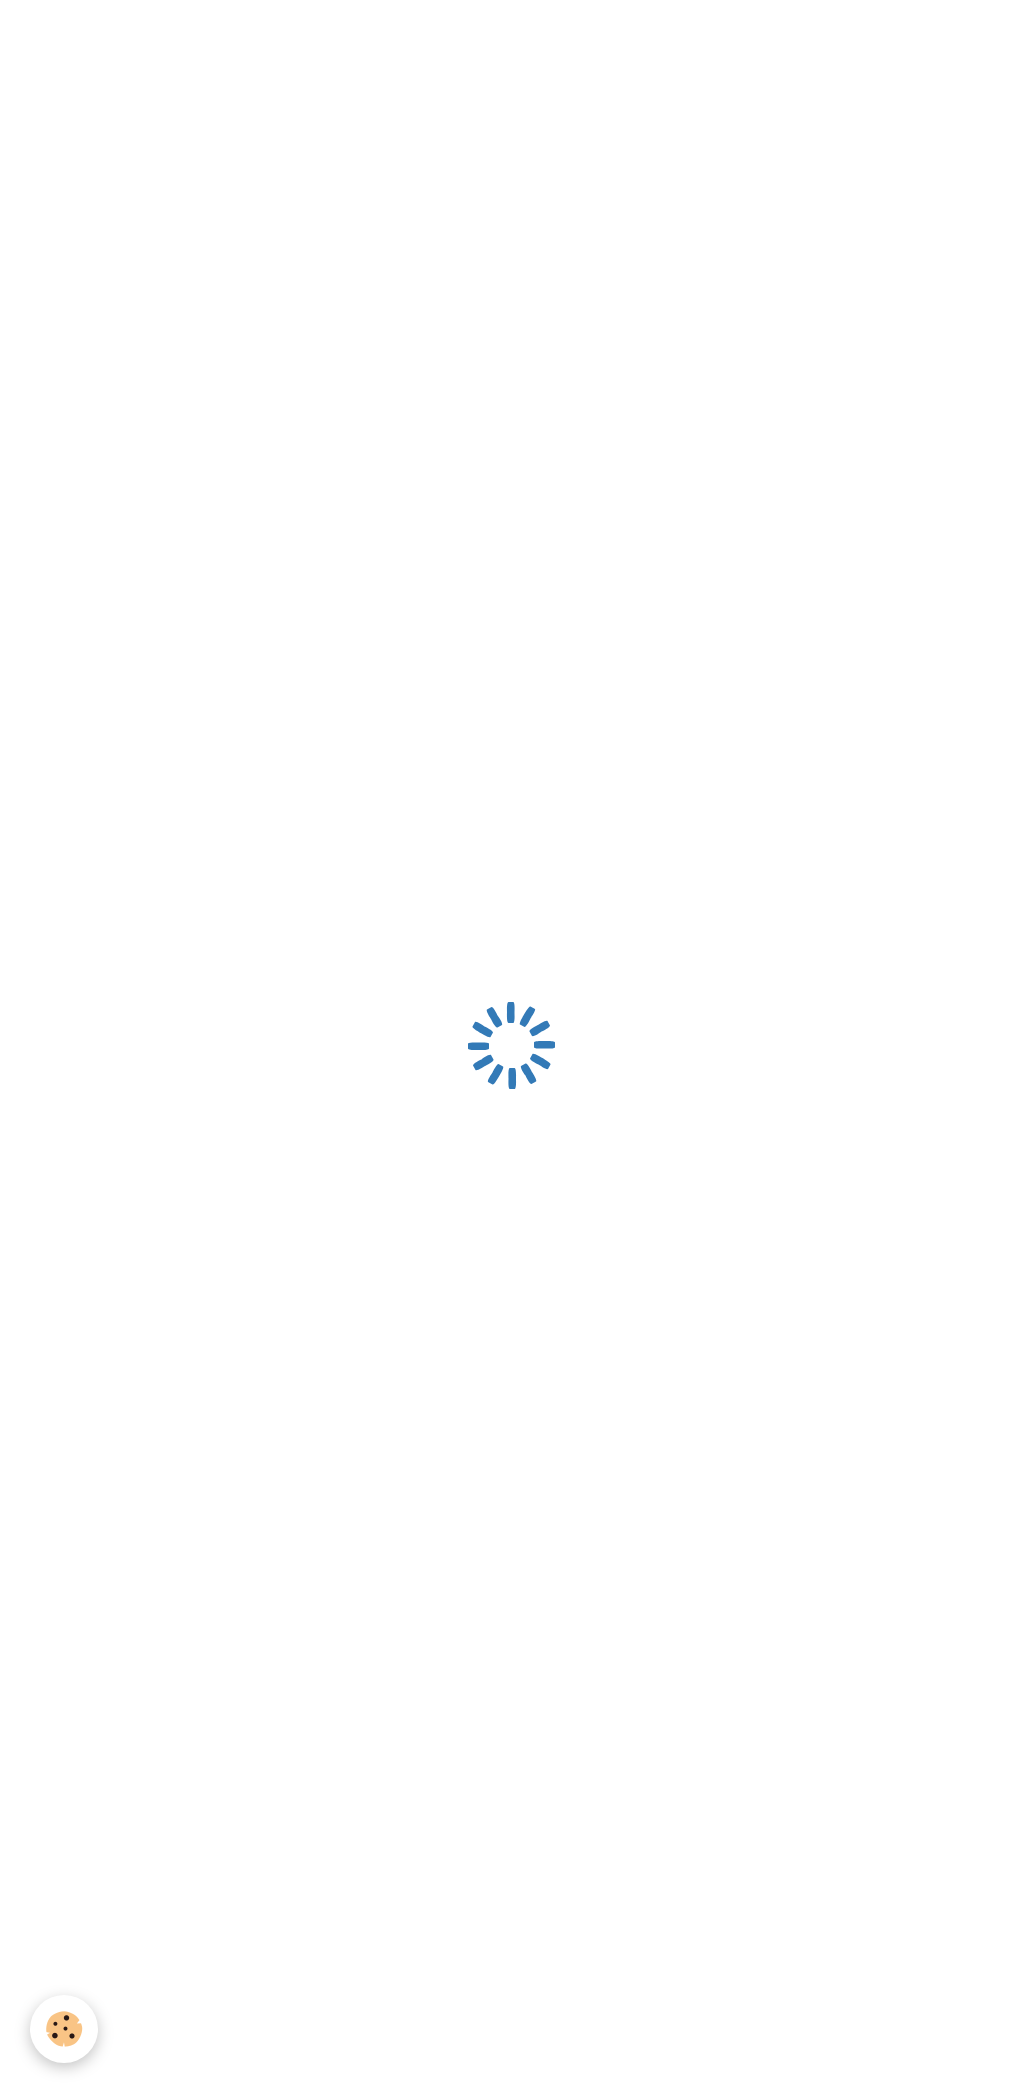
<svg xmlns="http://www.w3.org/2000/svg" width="1022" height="2091">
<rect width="100%" height="100%" fill="#fff"/>
<path fill="#337ab7" d="M508.5 1002h5c1.5 1 1 9 1 10.5c0 1.5 .5 9.5-1 10.5h-5c-2 0-1.5-9.5-1.5-10.5c0-1-.5-10.5 1.5-10.5zm22 4.5l4.5 2.5c1 1.5-3.5 8-4.5 9.5c-.5 1-4 8.5-6 8.5l-4.5-2.5c-1.5-1 3.5-9 4-10c.5-.5 5-9 6.5-8z"/>
<path fill="#337ab7" d="M547.5 1021l2.5 4.5c0 2-7 5.5-8.5 6c-1 1-7.5 5.5-9.5 4.5l-2.5-4.5c-1-2 7.5-6 8.5-6.5c.5-.5 8.5-5.5 9.5-4zm7.5 21.5v5c-1 1.5-9 1-10.5 1c-1.5 0-9.5 .5-10.5-1v-5c0-2 9.5-1.5 10.5-1.5c1 0 10.5-.5 10.5 1.5zm-4.5 22l-2.5 4.5c-1.5 1-8-3.5-9.5-4.5c-1-.5-8.5-4-8.5-6l2.5-4.5c1-1.5 9 3.5 10 4c.5 .5 9 5 8 6.5z"/>
<path fill="#337ab7" d="M536 1081.5l-4.5 2.5c-2 0-5.5-7-6-8.5c-1-1-5.5-7.5-4.5-9.5l4.5-2.5c2-1 6 7.5 6.5 8.5c.5 .5 5.5 8.5 4 9.5zm-21.5 7.5h-5c-1.5-1-1-9-1-10.5c0-1.5-.5-9.5 1-10.5h5c2 0 1.5 9.5 1.5 10.5c0 1 .5 10.5-1.5 10.5zm-22-4.5l-4.5-2.5c-1-1.5 3.5-8 4.5-9.5c.5-1 4-8.5 6-8.5l4.5 2.5c1.5 1-3.5 9-4 10c-.5 .5-5 9-6.5 8z"/>
<path fill="#337ab7" d="M475.5 1070l-2.5-4.5c0-2 7-5.5 8.5-6c1-1 7.5-5.5 9.5-4.5l2.5 4.5c1 2-7.5 6-8.5 6.5c-.5 .5-8.5 5.5-9.5 4zm-7.5-21.5v-5c1-1.5 9-1 10.5-1c1.5 0 9.5-.5 10.5 1v5c0 2-9.5 1.5-10.5 1.5c-1 0-10.5 .5-10.5-1.5zm4.5-22l2.5-4.5c1.5-1 8 3.5 9.5 4.5c1 .5 8.5 4 8.5 6l-2.5 4.5c-1 1.5-9-3.5-10-4c-.5-.5-9-5-8-6.5z"/>
<path fill="#337ab7" d="M487 1009.5l4.5-2.5c2 0 5.5 7 6 8.5c1 1 5.5 7.5 4.5 9.5l-4.5 2.5c-2 1-6-7.5-6.5-8.5c-.5-.5-5.5-8.5-4-9.5z"/>
<rect fill="#0000003d" filter="blur(7.5px)" x="30" y="2000" width="68" height="67" rx="33.5"/>
<circle fill="#fff" cx="64" cy="2029" r="34"/>
<image href="1.png" x="46" y="2011" width="37" height="36"/>
</svg>
